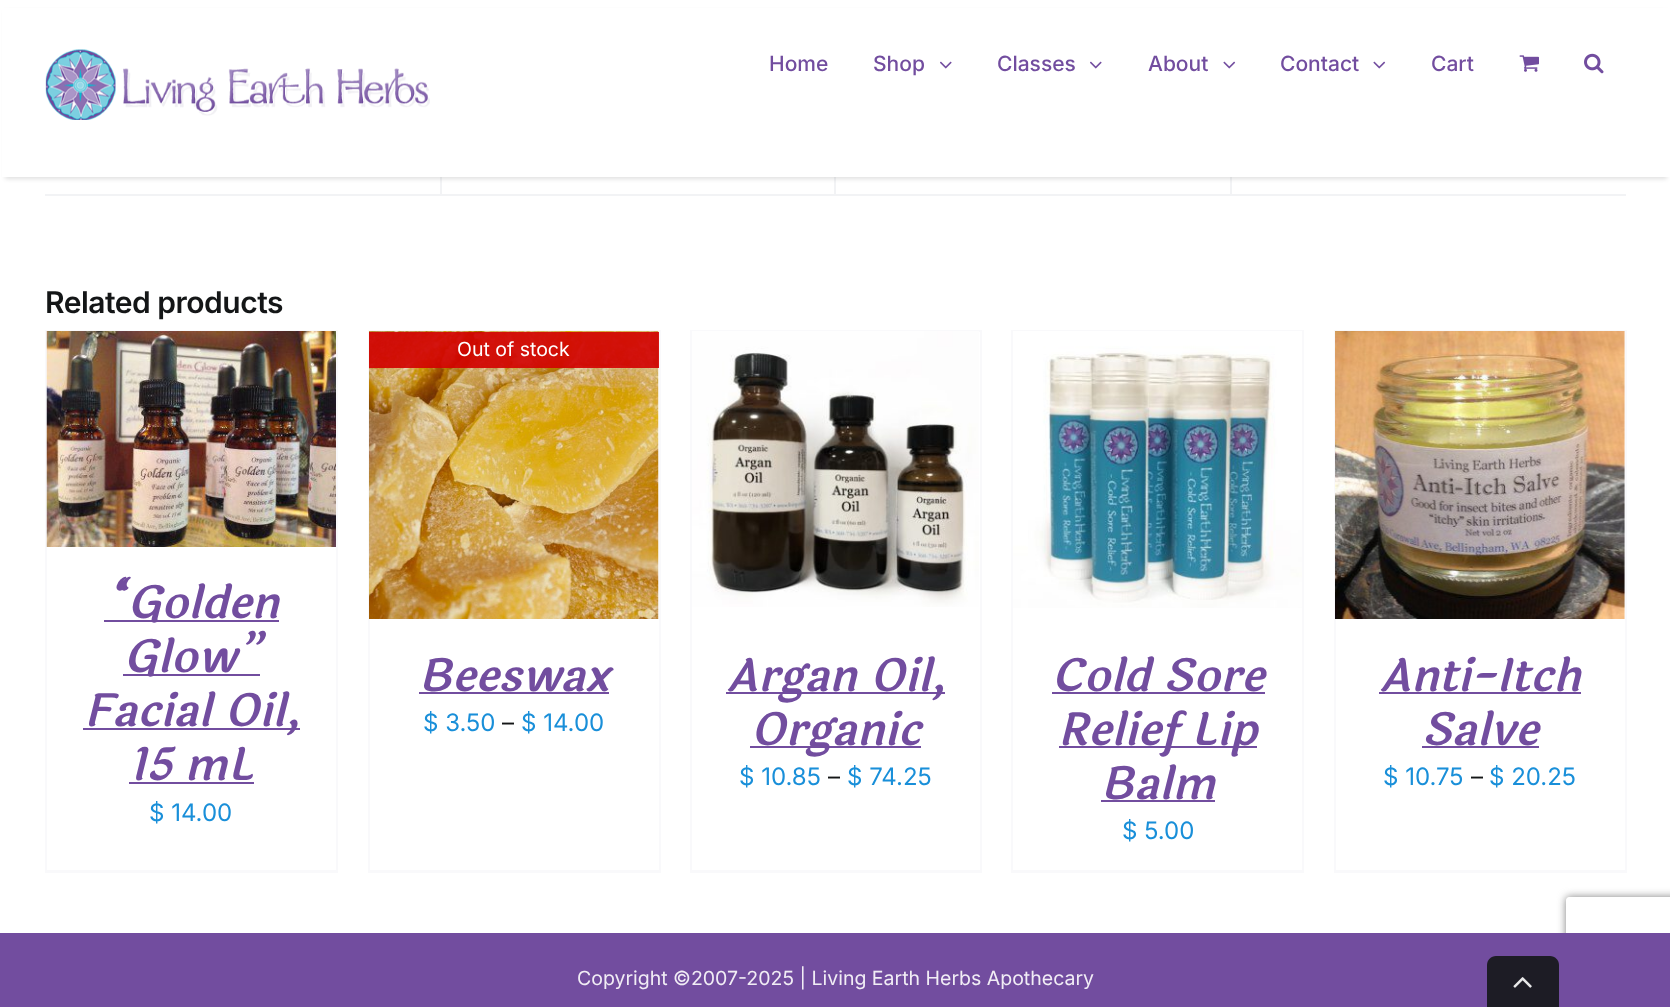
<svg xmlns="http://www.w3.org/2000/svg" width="1670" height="1007">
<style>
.a{font:500 21px Inter;fill:#724d9f}
.b{font:600 30px Inter;letter-spacing:-0.5px;fill:#141617}
.c{font:italic 600 45px Laila;fill:#724d9f}
.d{font:24px Inter;fill:#198fd9}
.e{font:19.5px Inter;fill:#fff}
.f{font:24px Inter;fill:#141617}
.g{font:19.5px Inter;fill:#f1edf5}
</style>
<defs>
<clipPath id="clip1"><path d="M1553 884h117v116h-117zm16 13h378c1.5 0 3 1.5 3 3v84c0 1.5-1.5 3-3 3h-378c-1.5 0-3-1.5-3-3v-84c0-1.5 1.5-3 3-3z" clip-rule="evenodd"/></clipPath>
</defs>
<rect width="100%" height="100%" fill="#fff"/>
<path fill="#f2f3f5" d="M440 177h2v17H440z"/>
<path fill="#f2f3f5" d="M834 177h2v17H834z"/>
<path fill="#f2f3f5" d="M1230 177h2v17H1230z"/>
<path fill="#0000001f" filter="blur(2px)" d="M5 11h1662v168H5z"/>
<path fill="#fff" d="M2 8h1668v169H2z"/>
<image href="1.png" x="45" y="49" width="385" height="71"/>
<image href="2.png" x="940" y="61" width="12" height="8"/>
<image href="2.png" x="1090" y="61" width="12" height="8"/>
<image href="3.png" x="1223" y="61" width="13" height="8"/>
<image href="3.png" x="1373" y="61" width="13" height="8"/>
<image href="4.png" x="1519" y="55" width="20" height="17"/>
<image href="5.png" x="1584" y="53" width="20" height="21"/>
<path fill="#f2f3f5" d="M45 194h1581v2H45z"/>
<path fill="#f9f9fb" d="M45 330h293v1H45z"/>
<path fill="#f9f9fb" d="M336 330h2v543H336z"/>
<path fill="#f9f9fb" d="M45 870h293v3H45z"/>
<path fill="#f9f9fb" d="M45 330h2v543H45z"/>
<image href="6.png" x="46" y="331" width="290" height="216"/>
<path fill="#724d9f" d="M104 620h175v2H104z"/>
<path fill="#724d9f" d="M123 674h137v2H123z"/>
<path fill="#724d9f" d="M83 728h217v2H83z"/>
<path fill="#724d9f" d="M129 782h125v2H129z"/>
<path fill="#f9f9fb" d="M368 330h292v2H368z"/>
<path fill="#f9f9fb" d="M659 330h2v543H659z"/>
<path fill="#f9f9fb" d="M368 870h292v3H368z"/>
<path fill="#f9f9fb" d="M368 330h2v543H368z"/>
<image href="7.png" x="369" y="331" width="290" height="288"/>
<path fill="#d20000e6" d="M369 332h290v36H369z"/>
<path fill="#724d9f" d="M419 692h190v2H419z"/>
<path fill="#f9f9fb" d="M690 330h291v2H690z"/>
<path fill="#f9f9fb" d="M980 330h2v543H980z"/>
<path fill="#f9f9fb" d="M690 870h291v3H690z"/>
<path fill="#f9f9fb" d="M690 330h2v543H690z"/>
<image href="8.png" x="692" y="331" width="287" height="276"/>
<path fill="#724d9f" d="M726 692h219v2H726z"/>
<path fill="#724d9f" d="M750 746h171v2H750z"/>
<path fill="#f9f9fb" d="M1011 330h293v1H1011z"/>
<path fill="#f9f9fb" d="M1302 330h2v543H1302z"/>
<path fill="#f9f9fb" d="M1011 870h293v3H1011z"/>
<path fill="#f9f9fb" d="M1011 330h2v543H1011z"/>
<image href="9.png" x="1013" y="331" width="289" height="277"/>
<path fill="#724d9f" d="M1052 692h213v2H1052z"/>
<path fill="#724d9f" d="M1059 746h198v2H1059z"/>
<path fill="#724d9f" d="M1101 800h114v2H1101z"/>
<path fill="#f9f9fb" d="M1334 330h292v2H1334z"/>
<path fill="#f9f9fb" d="M1625 330h2v543H1625z"/>
<path fill="#f9f9fb" d="M1334 870h292v3H1334z"/>
<path fill="#f9f9fb" d="M1334 330h2v543H1334z"/>
<image href="10.png" x="1335" y="331" width="290" height="288"/>
<path fill="#724d9f" d="M1379 692h202v2H1379z"/>
<path fill="#724d9f" d="M1422 746h117v2H1422z"/>
<g clip-path="url(#clip1)">
<rect fill="#808080" filter="blur(4px)" x="1566" y="897" width="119" height="90" rx="3"/>
</g>
<path fill="#724d9f" d="M0 933h1670v74H0z"/>
<path fill="#1d1c25" d="M1496 956h54c5 0 9 4 9 9v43h-72v-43c0-5 4-9 9-9z"/>
<image href="11.png" x="1513" y="977" width="19" height="11"/>
<text class="a" x="769" y="71">Home</text>
<text class="a" x="873" y="71">Shop</text>
<text class="a" x="997" y="71">Classes</text>
<text class="a" x="1148" y="71">About</text>
<text class="a" x="1280" y="71">Contact</text>
<text class="a" x="1431" y="71">Cart</text>
<text class="b" x="45" y="313">Related products</text>
<text class="c" x="103" y="618">“Golden</text>
<text class="c" x="123" y="672">Glow”</text>
<text class="c" x="83" y="726">Facial Oil,</text>
<text class="c" x="129" y="780">15 mL</text>
<text class="d" x="149" y="821">$ 14.00</text>
<text class="e" x="457" y="356">Out of stock</text>
<text class="c" x="418" y="691">Beeswax</text>
<text class="d" x="423" y="731">$ 3.50</text>
<text class="f" x="502" y="731">–</text>
<text class="d" x="521" y="731">$ 14.00</text>
<text class="c" x="726" y="691">Argan Oil,</text>
<text class="c" x="750" y="745">Organic</text>
<text class="d" x="739" y="785">$ 10.85</text>
<text class="f" x="828" y="785">–</text>
<text class="d" x="847" y="785">$ 74.25</text>
<text class="c" x="1051" y="691">Cold Sore</text>
<text class="c" x="1058" y="745">Relief Lip</text>
<text class="c" x="1100" y="799">Balm</text>
<text class="d" x="1122" y="839">$ 5.00</text>
<text class="c" x="1379" y="691">Anti-Itch</text>
<text class="c" x="1421" y="745">Salve</text>
<text class="d" x="1383" y="785">$ 10.75</text>
<text class="f" x="1471" y="785">–</text>
<text class="d" x="1489" y="785">$ 20.25</text>
<text class="g" x="577" y="985">Copyright ©2007-2025 | Living Earth Herbs Apothecary</text>
</svg>
